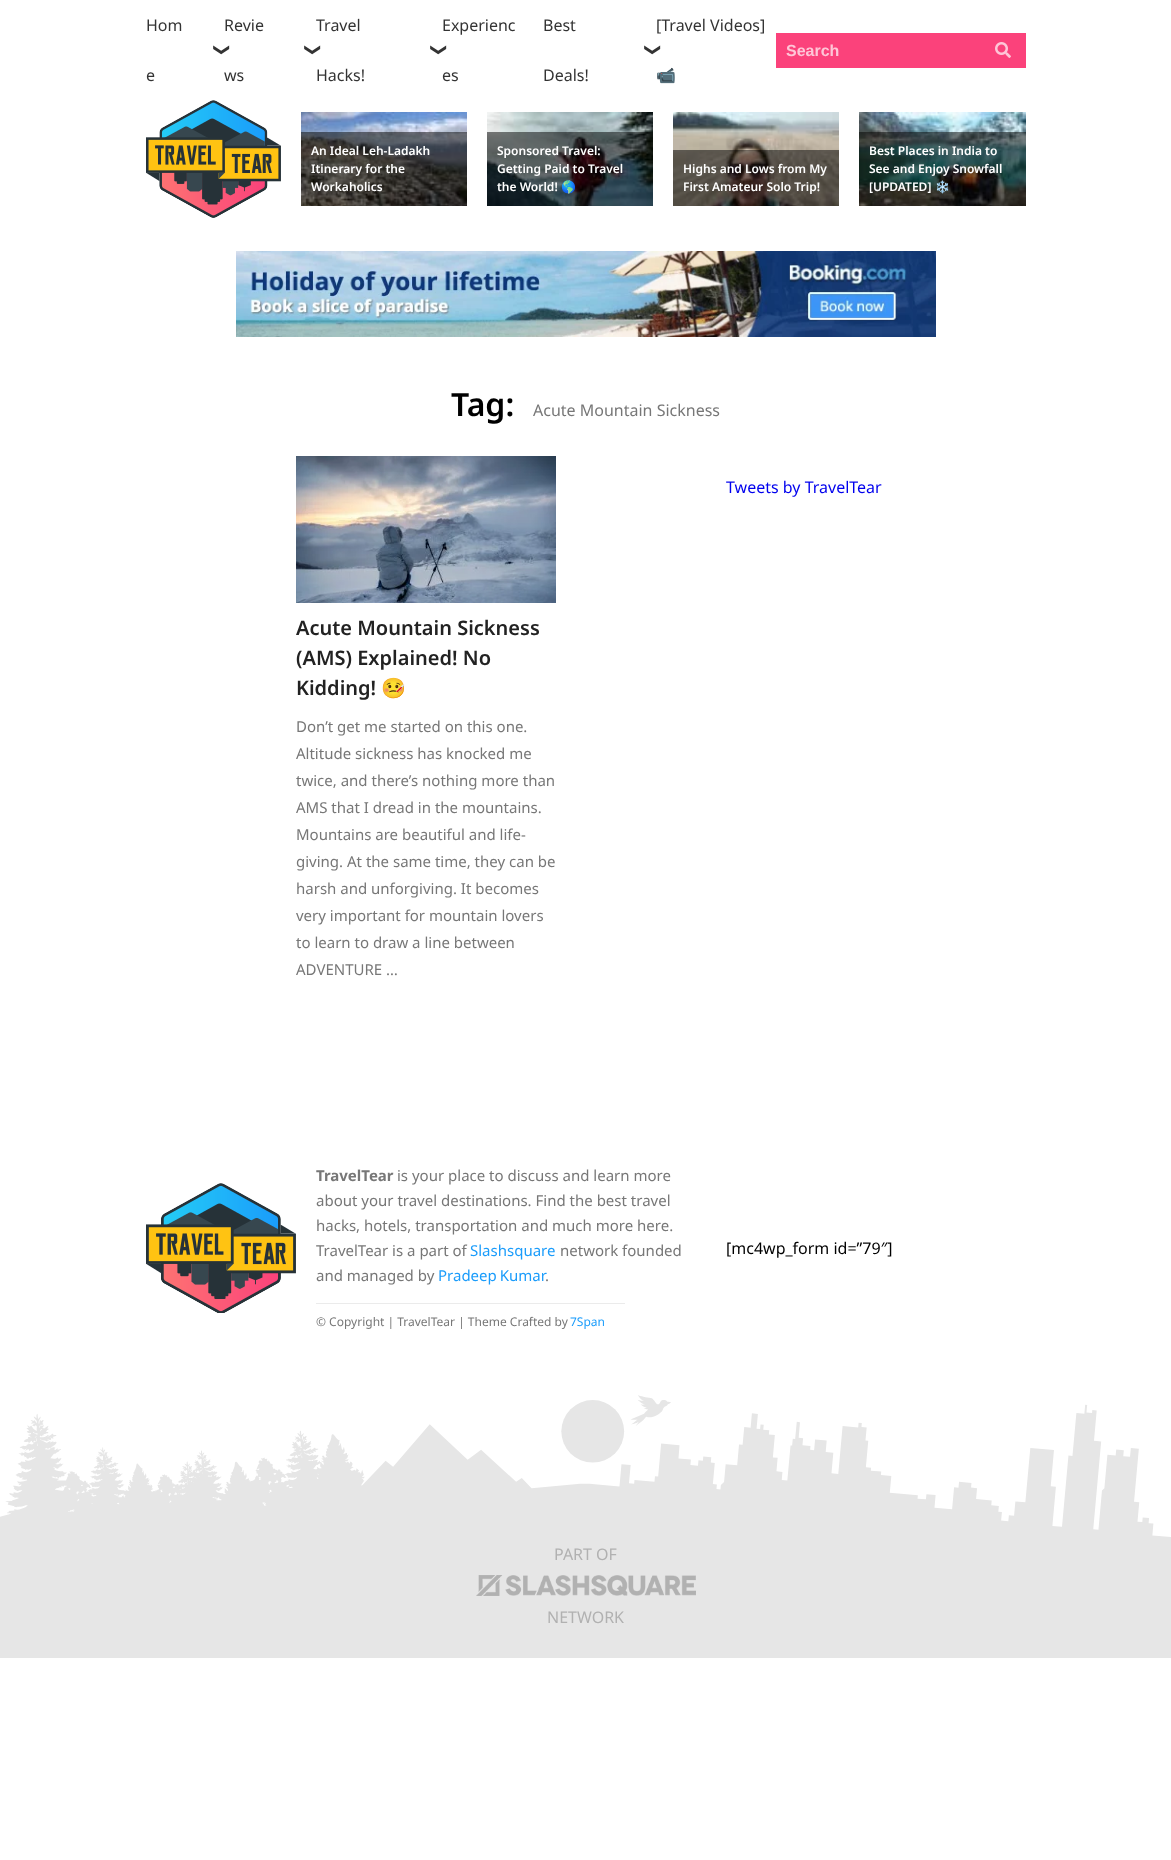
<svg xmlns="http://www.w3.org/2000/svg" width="1171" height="1860">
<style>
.a{font:16px Noto Sans;fill:#333}
.b{font:16px DejaVu Sans;fill:#333}
.c{font:16px Noto Color Emoji;fill:#333}
.d{font:bold 16px Liberation Sans;fill:#fec6d7}
.e{font:600 12px Noto Sans;fill:#fff}
.f{font:bold 12px Noto Color Emoji;fill:#fff}
.g{font:600 32px Noto Sans;fill:#000}
.h{font:16px Noto Sans;fill:#777}
.i{font:16px Noto Sans;fill:#00e}
.j{font:600 20px Noto Sans;fill:#222}
.k{font:bold 20px Noto Color Emoji;fill:#222}
.l{font:15px Noto Sans;fill:#777}
.m{font:bold 15px Noto Sans;fill:#777}
.n{font:15px Noto Sans;fill:#1a9cfb}
.o{font:12px Noto Sans;fill:#777}
.p{font:12px Noto Sans;fill:#1a9cfb}
.q{font:16px Noto Sans;fill:#000}
.r{font:16px Noto Sans;fill:#b1b1b1}
</style>
<rect width="100%" height="100%" fill="#fff"/>
<path fill="#fb427b" d="M776 33h250v35H776z"/>
<image href="1.png" x="995" y="42" width="16" height="16"/>
<image href="2.png" x="146" y="100" width="135" height="118"/>
<image href="3.png" x="301" y="112" width="166" height="94"/>
<path fill="#00000080" d="M301 132h166v74H301z"/>
<image href="4.png" x="487" y="112" width="166" height="94"/>
<path fill="#00000080" d="M487 132h166v74H487z"/>
<image href="5.png" x="673" y="112" width="166" height="94"/>
<path fill="#00000080" d="M673 150h166v56H673z"/>
<image href="6.png" x="859" y="112" width="167" height="94"/>
<path fill="#00000080" d="M859 132h167v74H859z"/>
<image href="7.png" x="236" y="251" width="700" height="86"/>
<image href="8.png" x="296" y="456" width="260" height="147"/>
<image href="9.png" x="146" y="1183" width="150" height="130"/>
<path fill="#ebebeb" d="M316 1303h309v1H316z"/>
<image href="10.png" x="0" y="1395" width="1171" height="148"/>
<path fill="#e6e6e6" d="M0 1543h1171v115H0z"/>
<image href="11.png" x="476" y="1575" width="220" height="21"/>
<text class="a" x="146" y="31">Hom</text>
<text class="b" x="217" y="43" transform="rotate(90 217 43)">❯</text>
<text class="a" x="146" y="81">e</text>
<text class="a" x="224" y="31">Revie</text>
<text class="b" x="308" y="43" transform="rotate(90 308 43)">❯</text>
<text class="a" x="224" y="81">ws</text>
<text class="a" x="316" y="31">Travel</text>
<text class="b" x="434" y="43" transform="rotate(90 434 43)">❯</text>
<text class="a" x="316" y="81">Hacks!</text>
<text class="a" x="442" y="31">Experienc</text>
<text class="a" x="442" y="81">es</text>
<text class="a" x="543" y="31">Best</text>
<text class="b" x="648" y="43" transform="rotate(90 648 43)">❯</text>
<text class="a" x="543" y="81">Deals!</text>
<text class="a" x="656" y="31">[Travel Videos]</text>
<text class="c" x="656" y="81">📹</text>
<text class="d" x="786" y="56">Search</text>
<text class="e" x="311" y="155">An Ideal Leh-Ladakh</text>
<text class="e" x="311" y="173">Itinerary for the</text>
<text class="e" x="311" y="191">Workaholics</text>
<text class="e" x="497" y="155">Sponsored Travel:</text>
<text class="e" x="497" y="173">Getting Paid to Travel</text>
<text class="e" x="497" y="191">the World!</text>
<text class="f" x="561" y="191">🌎</text>
<text class="e" x="683" y="173">Highs and Lows from My</text>
<text class="e" x="683" y="191">First Amateur Solo Trip!</text>
<text class="e" x="869" y="155">Best Places in India to</text>
<text class="e" x="869" y="173">See and Enjoy Snowfall</text>
<text class="e" x="869" y="191">[UPDATED]</text>
<text class="f" x="935" y="191">❄️</text>
<text class="g" x="451" y="416">Tag:</text>
<text class="h" x="533" y="416">Acute Mountain Sickness</text>
<text class="i" x="726" y="493">Tweets by TravelTear</text>
<text class="j" x="296" y="635">Acute Mountain Sickness</text>
<text class="j" x="296" y="665">(AMS) Explained! No</text>
<text class="j" x="296" y="695">Kidding!</text>
<text class="k" x="381" y="695">🤒</text>
<text class="l" x="296" y="732">Don’t get me started on this one.</text>
<text class="l" x="296" y="759">Altitude sickness has knocked me</text>
<text class="l" x="296" y="786">twice, and there’s nothing more than</text>
<text class="l" x="296" y="813">AMS that I dread in the mountains.</text>
<text class="l" x="296" y="840">Mountains are beautiful and life-</text>
<text class="l" x="296" y="867">giving. At the same time, they can be</text>
<text class="l" x="296" y="894">harsh and unforgiving. It becomes</text>
<text class="l" x="296" y="921">very important for mountain lovers</text>
<text class="l" x="296" y="948">to learn to draw a line between</text>
<text class="l" x="296" y="975">ADVENTURE …</text>
<text class="m" x="316" y="1181">TravelTear</text>
<text class="l" x="397" y="1181">is your place to discuss and learn more</text>
<text class="l" x="316" y="1206">about your travel destinations. Find the best travel</text>
<text class="l" x="316" y="1231">hacks, hotels, transportation and much more here.</text>
<text class="l" x="316" y="1256">TravelTear is a part of</text>
<text class="n" x="470" y="1256">Slashsquare</text>
<text class="l" x="560" y="1256">network founded</text>
<text class="l" x="316" y="1281">and managed by</text>
<text class="n" x="438" y="1281" word-spacing="-1">Pradeep Kumar</text>
<text class="l" x="545" y="1281">.</text>
<text class="o" x="316" y="1326">© Copyright | TravelTear | Theme Crafted by</text>
<text class="p" x="570" y="1326">7Span</text>
<text class="q" x="726" y="1254">[mc4wp_form id=”79″]</text>
<text class="r" x="554" y="1560">PART OF</text>
<text class="r" x="547" y="1623">NETWORK</text>
</svg>
